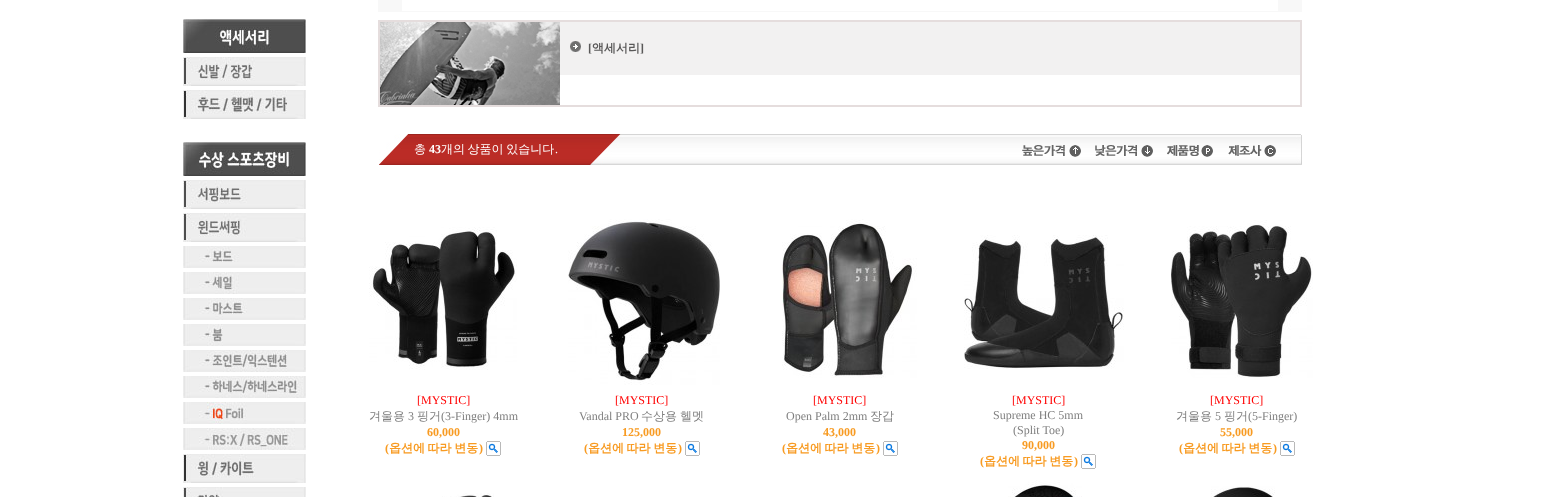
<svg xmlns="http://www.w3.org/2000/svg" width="1541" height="497">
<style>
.a{font:bold 12px Liberation Serif;fill:#595858}
.b{font:bold 12px WenQuanYi Zen Hei;fill:#595858}
.c{font:500 12px WenQuanYi Zen Hei;fill:#fff}
.d{font:bold 12px Liberation Serif;fill:#fff}
.e{font:12px Liberation Serif;fill:#fff}
.f{font:12px Liberation Serif;fill:#f00}
.g{font:500 12px WenQuanYi Zen Hei;fill:#7f7f7f}
.h{font:12px Liberation Serif;fill:#7f7f7f}
.i{font:bold 12px Liberation Serif;fill:#f89b22}
.j{font:bold 12px WenQuanYi Zen Hei;fill:#f89b22}
</style>
<rect width="100%" height="100%" fill="#fff"/>
<image href="1.png" x="183" y="19" width="123" height="34"/>
<image href="2.png" x="183" y="57" width="123" height="29"/>
<image href="3.png" x="183" y="90" width="123" height="29"/>
<image href="4.png" x="183" y="142" width="123" height="34"/>
<image href="5.png" x="183" y="180" width="123" height="29"/>
<image href="6.png" x="183" y="213" width="123" height="29"/>
<image href="7.png" x="183" y="246" width="123" height="22"/>
<image href="8.png" x="183" y="272" width="123" height="22"/>
<image href="9.png" x="183" y="298" width="123" height="22"/>
<image href="10.png" x="183" y="324" width="123" height="22"/>
<image href="11.png" x="183" y="350" width="123" height="22"/>
<image href="12.png" x="183" y="376" width="123" height="22"/>
<image href="13.png" x="183" y="402" width="123" height="22"/>
<image href="14.png" x="183" y="428" width="123" height="22"/>
<image href="15.png" x="183" y="454" width="123" height="29"/>
<image href="16.png" x="183" y="487" width="123" height="10"/>
<path fill="#f8f8f8" d="M378 0h924v12H378z"/>
<path fill="#fff" d="M402 0h876v11H402z"/>
<path fill="none" stroke="#e5dddd" stroke-width="2" d="M379 21h922v85H379z"/>
<image href="17.png" x="380" y="22" width="180" height="83"/>
<path fill="#f2f1f1" d="M560 22h740v53H560z"/>
<image href="18.png" x="570" y="41" width="11" height="11"/>
<image href="19.png" x="379" y="134" width="35" height="31"/>
<image href="20.png" x="414" y="134" width="174" height="31"/>
<image href="21.png" x="588" y="134" width="2" height="31"/>
<image href="22.png" x="590" y="134" width="34" height="31"/>
<image href="23.png" x="624" y="134" width="672" height="31"/>
<image href="24.png" x="1022" y="145" width="59" height="12"/>
<image href="25.png" x="1095" y="145" width="58" height="12"/>
<image href="26.png" x="1167" y="145" width="46" height="12"/>
<image href="27.png" x="1228" y="145" width="48" height="12"/>
<image href="28.png" x="1296" y="134" width="6" height="31"/>
<image href="29.png" x="369" y="227" width="148" height="143"/>
<image href="30.png" x="486" y="441" width="15" height="15"/>
<image href="31.png" x="568" y="219" width="152" height="166"/>
<image href="30.png" x="685" y="441" width="15" height="15"/>
<image href="32.png" x="782" y="219" width="135" height="159"/>
<image href="30.png" x="883" y="441" width="15" height="15"/>
<image href="33.png" x="964" y="235" width="160" height="134"/>
<image href="30.png" x="1081" y="454" width="15" height="15"/>
<image href="34.png" x="1171" y="220" width="142" height="158"/>
<image href="30.png" x="1280" y="441" width="15" height="15"/>
<image href="35.png" x="442" y="493" width="52" height="4"/>
<image href="36.png" x="1008" y="480" width="74" height="17"/>
<image href="37.png" x="1211" y="486" width="64" height="11"/>
<text class="a" x="588" y="52">[</text>
<text class="b" x="592" y="52">액세서리</text>
<text class="a" x="640" y="52">]</text>
<text class="c" x="414" y="153">총</text>
<text class="d" x="429" y="153">43</text>
<text class="c" x="441" y="153" word-spacing="-1">개의 상품이 있습니다</text>
<text class="e" x="555" y="153">.</text>
<text class="f" x="417" y="404">[MYSTIC]</text>
<text class="g" x="369" y="420">겨울용</text>
<text class="h" x="408" y="420">3</text>
<text class="g" x="417" y="420">핑거</text>
<text class="h" x="441" y="420">(3-Finger) 4mm</text>
<text class="i" x="427" y="436">60,000</text>
<text class="i" x="385" y="452">(</text>
<text class="j" x="389" y="452" word-spacing="-1">옵션에 따라 변동</text>
<text class="i" x="479" y="452">)</text>
<text class="f" x="615" y="404">[MYSTIC]</text>
<text class="h" x="579" y="420">Vandal PRO</text>
<text class="g" x="641" y="420">수상용</text>
<text class="g" x="680" y="420">헬멧</text>
<text class="i" x="622" y="436">125,000</text>
<text class="i" x="584" y="452">(</text>
<text class="j" x="588" y="452" word-spacing="-1">옵션에 따라 변동</text>
<text class="i" x="678" y="452">)</text>
<text class="f" x="813" y="404">[MYSTIC]</text>
<text class="h" x="786" y="420">Open Palm 2mm</text>
<text class="g" x="870" y="420">장갑</text>
<text class="i" x="823" y="436">43,000</text>
<text class="i" x="782" y="452">(</text>
<text class="j" x="786" y="452" word-spacing="-1">옵션에 따라 변동</text>
<text class="i" x="876" y="452">)</text>
<text class="f" x="1012" y="404">[MYSTIC]</text>
<text class="h" x="993" y="419">Supreme HC 5mm</text>
<text class="h" x="1013" y="434">(Split Toe)</text>
<text class="i" x="1022" y="449">90,000</text>
<text class="i" x="980" y="465">(</text>
<text class="j" x="984" y="465" word-spacing="-1">옵션에 따라 변동</text>
<text class="i" x="1074" y="465">)</text>
<text class="f" x="1210" y="404">[MYSTIC]</text>
<text class="g" x="1176" y="420">겨울용</text>
<text class="h" x="1215" y="420">5</text>
<text class="g" x="1224" y="420">핑거</text>
<text class="h" x="1248" y="420">(5-Finger)</text>
<text class="i" x="1220" y="436">55,000</text>
<text class="i" x="1179" y="452">(</text>
<text class="j" x="1183" y="452" word-spacing="-1">옵션에 따라 변동</text>
<text class="i" x="1273" y="452">)</text>
</svg>
